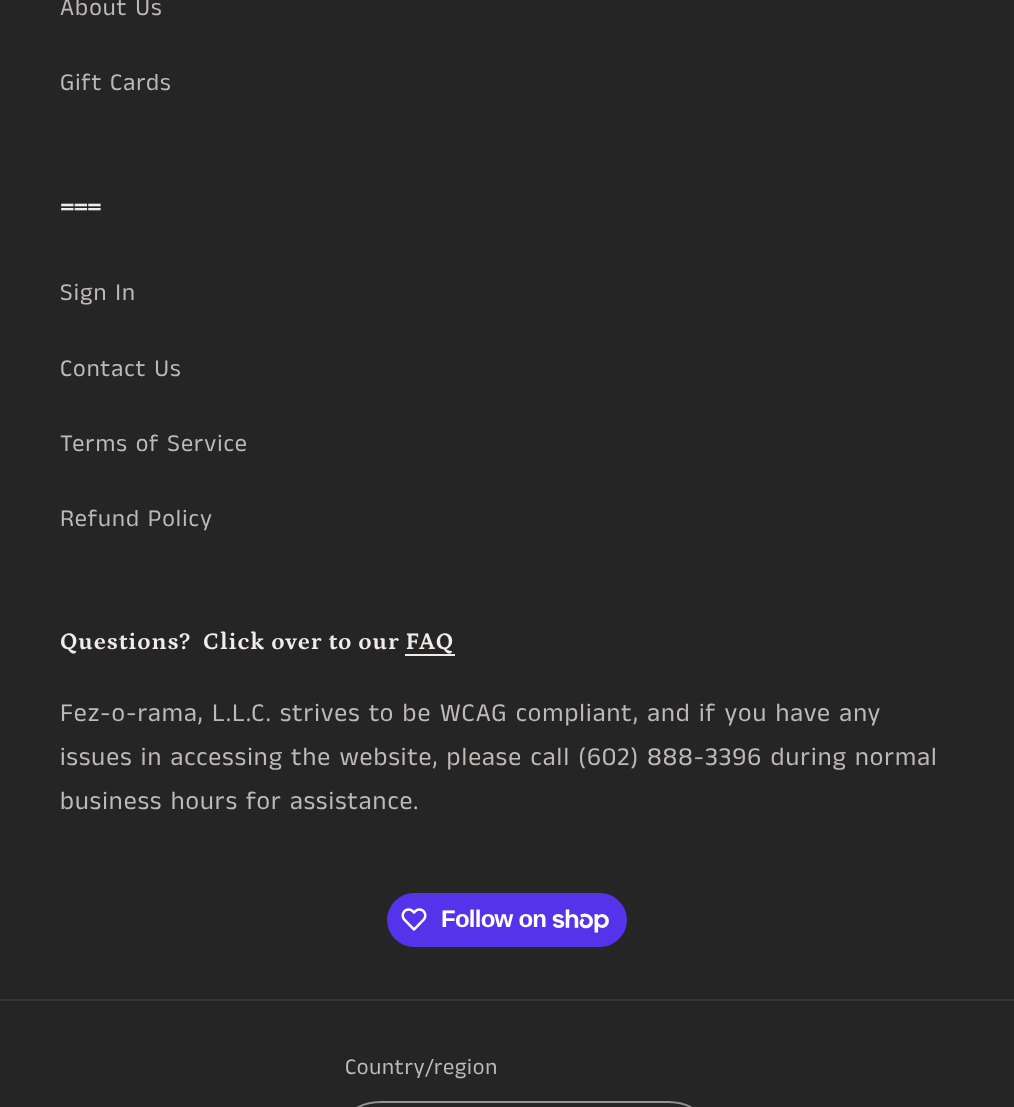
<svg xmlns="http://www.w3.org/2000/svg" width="1014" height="1107">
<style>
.a{font:24.25px Anek Tamil;letter-spacing:1.03px;fill:#bdbaba}
.b{font:bold 24px FreeSans;letter-spacing:0.9px;fill:#efecec}
.c{font:bold 24px Petrona;letter-spacing:0.9px;fill:#efecec}
.d{font:25.9px Anek Tamil;letter-spacing:1.03px;fill:#bdbaba}
.e{font:bold 24px Liberation Sans;letter-spacing:-0.75px;fill:#fff}
.f{font:22.5px Anek Tamil;letter-spacing:0.75px;fill:#bdbaba}
</style>
<rect width="100%" height="100%" fill="#252525"/>
<path fill="#efecec" d="M405 654h50v2H405z"/>
<rect fill="#5433eb" x="387" y="893" width="240" height="54" rx="27"/>
<image href="1.png" x="401" y="908" width="26" height="23"/>
<image href="2.png" x="552" y="909" width="57" height="24"/>
<path fill="#353535" d="M0 999h1014v2H0z"/>
<rect fill="none" stroke="#949292" stroke-width="2" x="346" y="1102" width="357" height="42" rx="35"/>
<text class="a" x="60" y="15">About Us</text>
<text class="a" x="60" y="90">Gift Cards</text>
<text class="b" x="60" y="213">⩶</text>
<text class="a" x="60" y="300">Sign In</text>
<text class="a" x="60" y="376">Contact Us</text>
<text class="a" x="60" y="451">Terms of Service</text>
<text class="a" x="60" y="526">Refund Policy</text>
<text class="c" xml:space="preserve" x="60" y="649">Questions?  Click over to our FAQ</text>
<text class="d" x="60" y="721">Fez-o-rama, L.L.C. strives to be WCAG compliant, and if you have any</text>
<text class="d" x="60" y="765">issues in accessing the website, please call (602) 888-3396 during normal</text>
<text class="d" x="60" y="809">business hours for assistance.</text>
<text class="e" x="441" y="927">Follow on</text>
<text class="f" x="345" y="1074">Country/region</text>
</svg>
